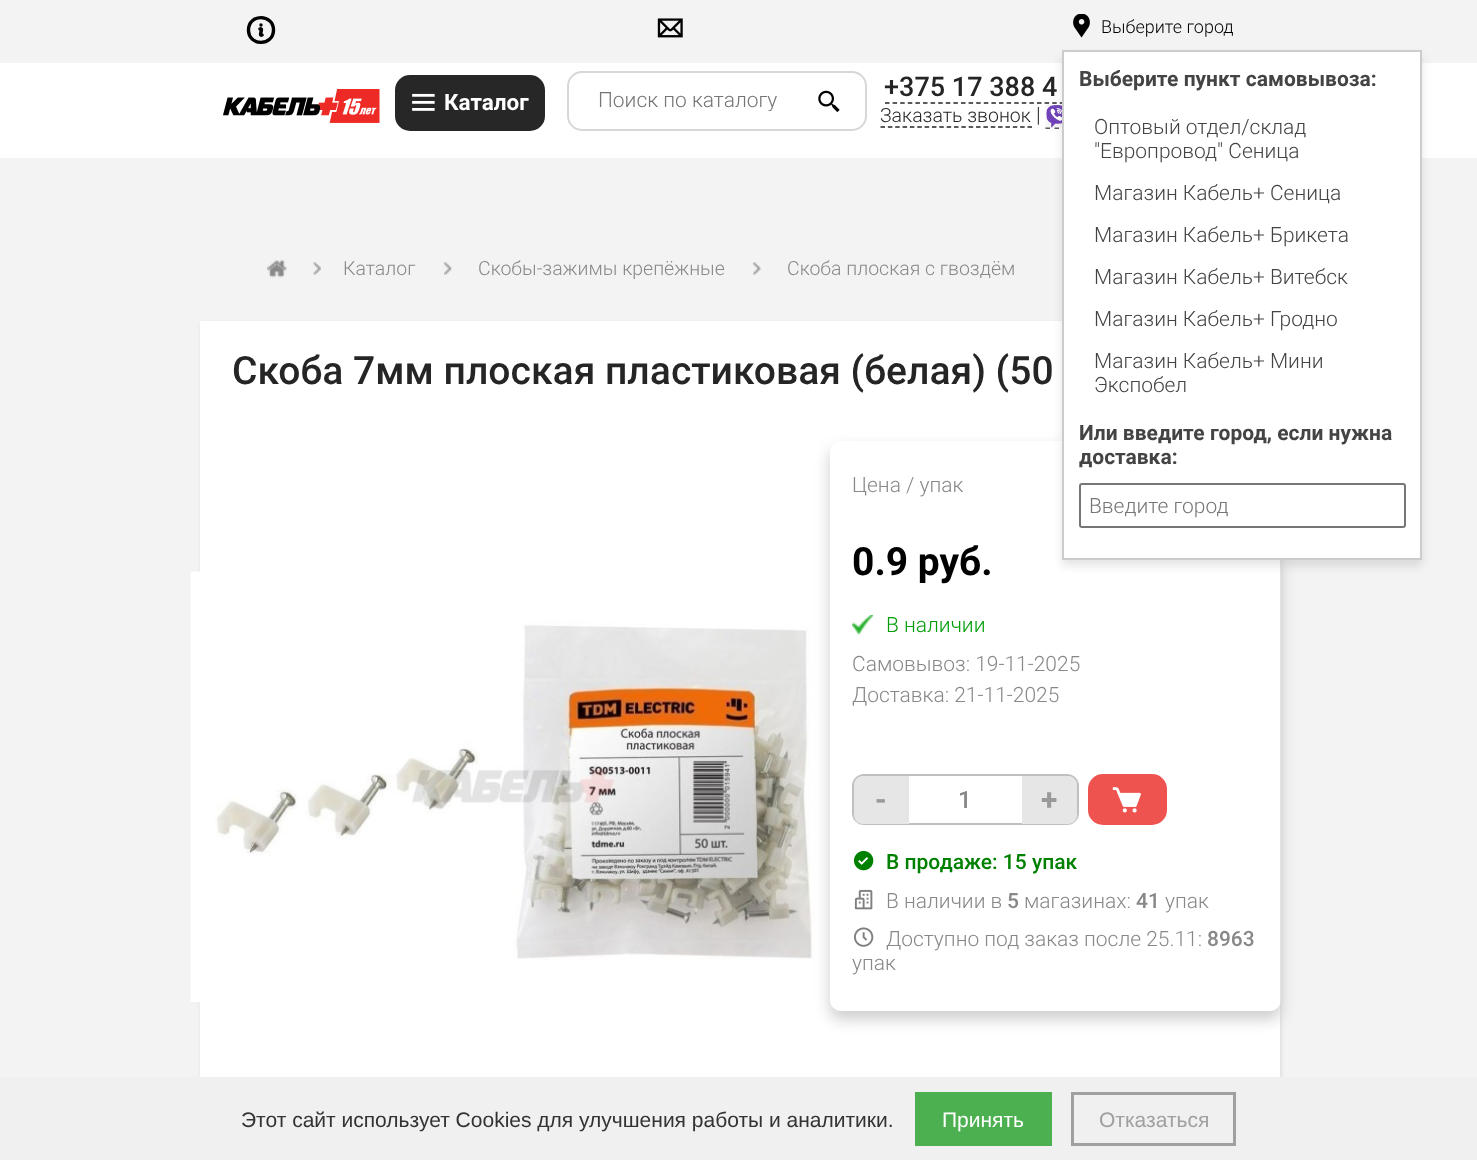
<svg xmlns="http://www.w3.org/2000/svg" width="1477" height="1160">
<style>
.a{font:bold 22.5px Roboto;fill:#fff}
.b{font:300 21px Roboto;fill:#757575}
.c{font:500 27px Roboto;fill:#252525}
.d{font:300 19.5px Roboto;fill:#252525}
.e{font:300 21px Roboto;fill:#252525}
.f{font:300 18px Roboto;fill:#000}
.g{font:bold 21px Roboto;fill:#444}
.h{font:300 21px Roboto;fill:#444}
.i{font:300 19.5px Roboto;fill:#888}
.j{font:500 39px Roboto;fill:#252525}
.k{font:300 21px Roboto;fill:#888}
.l{font:bold 39px Roboto;fill:#000}
.m{font:300 21px Roboto;fill:#019d06}
.n{font:bold 30px Roboto;fill:#999}
.o{font:500 24px Roboto;fill:#888}
.p{font:500 21px Roboto;fill:#008000}
.q{font:500 21px Roboto;fill:#888}
.r{font:21px Liberation Sans;fill:#333}
.s{font:21px Liberation Sans;fill:#fff}
.t{font:21px Liberation Sans;fill:#a0a0a0}
</style>
<defs>
<clipPath id="clip1"><path d="M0 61h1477v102h-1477zm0 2h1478v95h-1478z" clip-rule="evenodd"/></clipPath>
<clipPath id="clip2"><path d="M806 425h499v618h-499zm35 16h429c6 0 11 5 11 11v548c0 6-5 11-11 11h-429c-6 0-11-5-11-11v-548c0-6 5-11 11-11z" clip-rule="evenodd"/></clipPath>
<clipPath id="clip3"><path d="M599 87h183v24H599z"/></clipPath>
</defs>
<rect width="100%" height="100%" fill="#fff"/>
<g clip-path="url(#clip1)">
<path fill="#0000001a" filter="blur(1px)" d="M2 65h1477v94H2z"/>
</g>
<image href="1.png" x="223" y="89" width="157" height="34"/>
<rect fill="#272727" x="395" y="75" width="150" height="56" rx="15"/>
<image href="2.png" x="412" y="93" width="23" height="18"/>
<rect fill="none" stroke="#d7d7d7" stroke-width="2" x="568" y="72" width="298" height="58" rx="14"/>
<image href="3.png" x="818" y="90" width="22" height="23"/>
<path fill="none" stroke="#252525" stroke-width="1.5" stroke-dasharray="4.5 3.1" d="M885 103h225"/>
<path fill="none" stroke="#252525" stroke-width="1.5" stroke-dasharray="4.5 2.85" d="M880.5 127h151.5"/>
<path fill="none" stroke="#252525" stroke-width="1.5" d="M1045.5 128h4.5m4.5 0h4.5m4.5 0h4.5"/>
<image href="4.png" x="1045" y="105" width="17" height="23"/>
<path fill="#f3f3f3" d="M0 0h1477v63H0z"/>
<path fill="none" stroke="#000" stroke-width="3.4" stroke-linecap="round" stroke-linejoin="round" d="M260 29c4-2-2 8 2 6m11.5-5c0 16.5-25 16.5-25 0c0-16.5 25-16.5 25 0zm-12.5-5h0z"/>
<image href="5.png" x="657" y="18" width="26" height="20"/>
<image href="6.png" x="1073" y="14" width="17" height="24"/>
<path fill="#f3f3f3" d="M0 158h1477v919H0z"/>
<path fill="#0000001a" filter="blur(2px)" d="M201 323h1080v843H201z"/>
<path fill="#fff" d="M200 321h1080v756H200z"/>
<path fill="#0000001a" filter="blur(4.5px)" d="M1062 56h360v510H1062z"/>
<image href="10.png" x="190" y="571" width="624" height="431"/>
<g clip-path="url(#clip2)">
<rect fill="#ccc" filter="blur(7.5px)" x="830" y="449" width="451" height="570" rx="11"/>
</g>
<path fill="#fff" stroke="#ccc" stroke-width="2" d="M1063 51h358v508H1063z"/>
<rect fill="none" stroke="#767676" stroke-width="2" x="1080" y="484" width="325" height="43" rx="2"/>
<image href="7.png" x="267" y="259" width="20" height="19"/>
<image href="8.png" x="313" y="262" width="8" height="13"/>
<image href="9.png" x="444" y="262" width="8" height="13"/>
<image href="9.png" x="753" y="262" width="8" height="13"/>
<image href="11.png" x="852" y="615" width="21" height="20"/>
<rect fill="none" stroke="#c0c0c0" stroke-width="2" x="853" y="775" width="225" height="49" rx="11"/>
<path fill="#e6e6e6" d="M863 776h46v48h-46c-5 0-9-4-9-9v-30c0-5 4-9 9-9z"/>
<path fill="#e6e6e6" d="M1022 776h46c5 0 9 4 9 9v30c0 5-4 9-9 9h-46z"/>
<rect fill="#ef5350" x="1088" y="774" width="79" height="51" rx="15"/>
<image href="12.png" x="1112" y="787" width="29" height="26"/>
<image href="13.png" x="853" y="850" width="21" height="21"/>
<image href="14.png" x="854" y="889" width="19" height="21"/>
<image href="15.png" x="854" y="927" width="20" height="20"/>
<path fill="#f0f0f0" d="M0 1077h1477v83H0z"/>
<path fill="#4caf50" d="M915 1092h137v54H915z"/>
<path fill="none" stroke="#a0a0a0" stroke-width="3" d="M1072.5 1093.5h162v51H1072.5z"/>
<text class="a" x="444" y="110">Каталог</text>
<g clip-path="url(#clip3)">
<text class="b" x="598" y="107">Поиск по каталогу</text>
</g>
<text class="c" x="884" y="96">+375 17 388 4</text>
<text class="d" x="880" y="122">Заказать звонок</text>
<text class="e" x="1036" y="122">|</text>
<text class="f" x="1101" y="33">Выберите город</text>
<text class="g" x="1079" y="86">Выберите пункт самовывоза:</text>
<text class="h" x="1094" y="134">Оптовый отдел/cклад</text>
<text class="h" x="1094" y="158">"Европровод" Сеница</text>
<text class="h" x="1094" y="200">Магазин Кабель+ Сеница</text>
<text class="h" x="1094" y="242">Магазин Кабель+ Брикета</text>
<text class="h" x="1094" y="284">Магазин Кабель+ Витебск</text>
<text class="h" x="1094" y="326">Магазин Кабель+ Гродно</text>
<text class="h" x="1094" y="368">Магазин Кабель+ Мини</text>
<text class="h" x="1094" y="392">Экспобел</text>
<text class="g" x="1079" y="440">Или введите город, если нужна</text>
<text class="g" x="1079" y="464">доставка:</text>
<text class="b" x="1089" y="513">Введите город</text>
<text class="i" x="343" y="275">Каталог</text>
<text class="i" x="478" y="275">Скобы-зажимы крепёжные</text>
<text class="i" x="787" y="275">Скоба плоская с гвоздём</text>
<text class="j" x="232" y="384">Скоба</text>
<text class="j" x="353" y="384">7мм плоская пластиковая (белая) (50</text>
<text class="k" x="852" y="492">Цена / упак</text>
<text class="l" x="852" y="575">0.9 руб.</text>
<text class="m" x="886" y="632">В наличии</text>
<text class="k" x="852" y="671">Самовывоз: 19-11-2025</text>
<text class="k" x="852" y="702">Доставка: 21-11-2025</text>
<text class="n" x="875" y="810">-</text>
<text class="o" x="958" y="808">1</text>
<text class="n" x="1041" y="810">+</text>
<text class="p" x="886" y="869">В продаже: 15 упак</text>
<text class="k" x="886" y="908">В наличии в</text>
<text class="q" x="1007" y="908">5</text>
<text class="k" x="1024" y="908">магазинах:</text>
<text class="q" x="1136" y="908">41</text>
<text class="k" x="1165" y="908">упак</text>
<text class="k" x="886" y="946">Доступно под заказ после 25.11:</text>
<text class="q" x="1207" y="946">8963</text>
<text class="k" x="852" y="970">упак</text>
<text class="r" x="241" y="1127">Этот сайт использует Cookies для улучшения работы и аналитики.</text>
<text class="s" x="942" y="1127">Принять</text>
<text class="t" x="1099" y="1127">Отказаться</text>
</svg>
